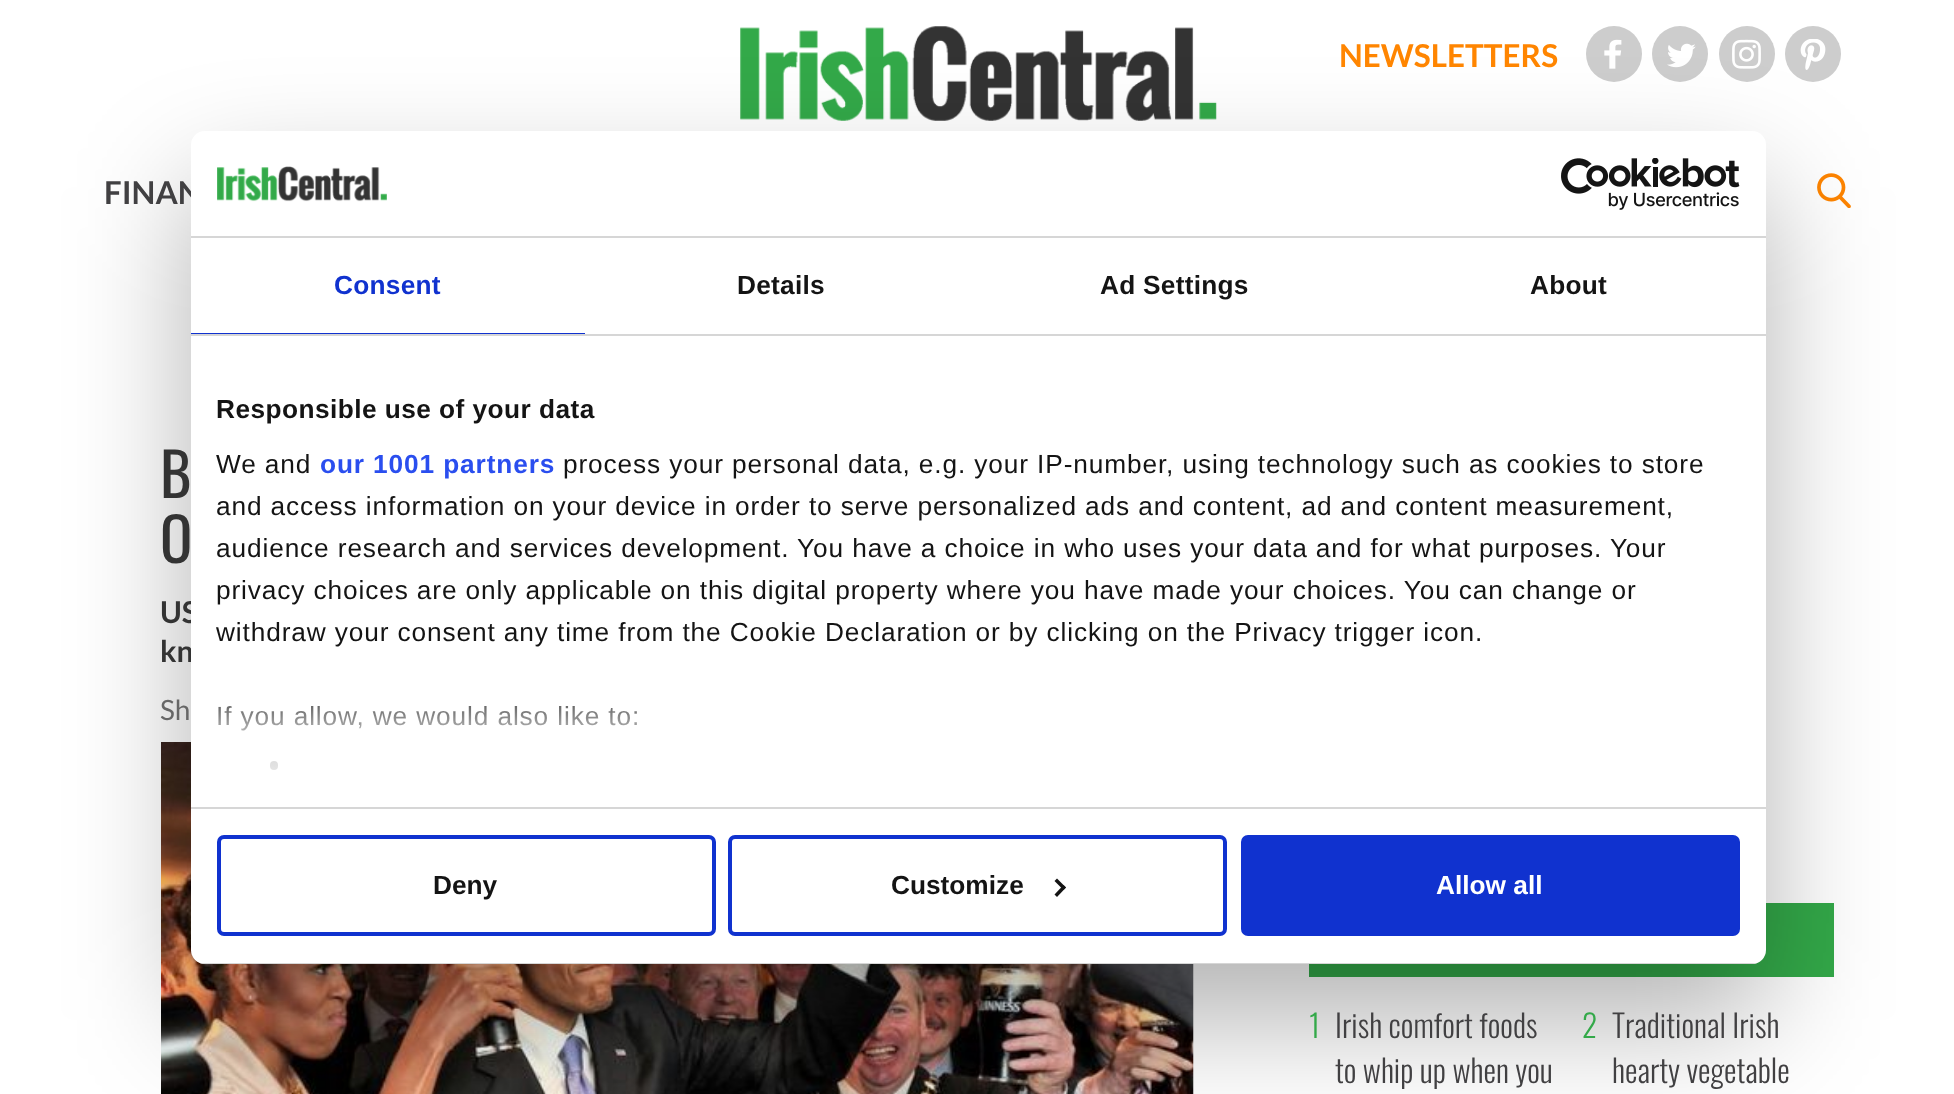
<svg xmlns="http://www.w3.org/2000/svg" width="1954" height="1094">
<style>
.a{font:bold 31.5px Lato;fill:#ff8500}
.b{font:bold 31.5px Lato;fill:#414042}
.c{font:60px Oswald;fill:#333}
.d{font:bold 30px Lato;fill:#333}
.e{font:26.25px Liberation Sans;letter-spacing:0.88px;fill:#141414}
.f{font:bold 26.25px Liberation Sans;fill:#fff}
.g{font:bold 26.25px Liberation Sans;fill:#141414}
.h{font:bold 26.25px Liberation Sans;letter-spacing:0.88px;fill:#2a4eef}
.i{font:bold 26.25px Liberation Sans;letter-spacing:0.45px;fill:#141414}
.j{font:bold 26.25px Liberation Sans;letter-spacing:0.25px;fill:#141414}
.k{font:bold 26.25px Liberation Sans;letter-spacing:0.25px;fill:#1032cf}
.l{font:28px Lato;fill:#666}
.m{font:300 31.5px Oswald;fill:#33a949}
.n{font:300 31.5px Oswald;fill:#414042}
</style>
<defs>
<linearGradient id="g1" gradientUnits="userSpaceOnUse" x1="967" y1="807" x2="967" y2="676"><stop offset="0" stop-color="#fff"/><stop offset="0.5" stop-color="#fff" stop-opacity="0.8"/><stop offset="1" stop-color="#fff" stop-opacity="0"/></linearGradient>
<clipPath id="clip1"><rect x="191" y="131" width="1575" height="833" rx="14"/></clipPath>
</defs>
<rect width="100%" height="100%" fill="#fff"/>
<image href="1.png" x="740" y="26" width="477" height="95"/>
<circle fill="#cdcdcd" cx="1614" cy="54" r="28"/>
<image href="2.png" x="1604" y="39" width="18" height="30"/>
<circle fill="#cdcdcd" cx="1680" cy="54" r="28"/>
<image href="3.png" x="1667" y="43" width="29" height="25"/>
<circle fill="#cdcdcd" cx="1747" cy="54" r="28"/>
<image href="4.png" x="1732" y="39" width="29" height="30"/>
<circle fill="#cdcdcd" cx="1813" cy="54" r="28"/>
<image href="5.png" x="1800" y="39" width="26" height="31"/>
<image href="6.png" x="1817" y="173" width="34" height="35"/>
<image href="9.png" x="161" y="742" width="1033" height="352"/>
<path fill="#33a949" d="M1309 903h525v74H1309z"/>
<rect fill="#0000004d" filter="blur(59.5px)" x="191" y="187" width="1575" height="833" rx="14"/>
<text class="a" x="1339" y="67">NEWSLETTERS</text>
<text class="b" x="104" y="204">FINAN</text>
<text class="c" x="160" y="498">B</text>
<text class="c" x="160" y="563">O</text>
<text class="d" x="160" y="623">US</text>
<text class="d" x="160" y="662">kn</text>
<rect fill="#fff" x="191" y="131" width="1575" height="833" rx="14"/>
<rect fill="#141414" x="270" y="761" width="8" height="9" rx="4"/>
<text class="e" x="216" y="725">If you allow, we would also like to:</text>
<path fill="url(#g1)" d="M218 706h419v64H218z"/>
<rect fill="none" stroke="#1032cf" stroke-width="4" x="730" y="837" width="495" height="97" rx="5"/>
<path fill="#141414" d="M1057 878.5l9 9l-2.5 2.5l-9-9z"/>
<path fill="#141414" d="M1063.5 885l2.5 2.5l-9 9.5l-2.5-2.5z"/>
<rect fill="#1032cf" stroke="#1032cf" stroke-width="4" x="1243" y="837" width="495" height="97" rx="5"/>
<text class="f" x="1436" y="894">Allow all</text>
<text class="g" x="891" y="894">Customize</text>
<rect fill="none" stroke="#1032cf" stroke-width="4" x="219" y="837" width="495" height="97" rx="5"/>
<text class="g" x="433" y="894">Deny</text>
<g clip-path="url(#clip1)">
<path fill="#d6d6d6" d="M200 963h1557v1H200z"/>
</g>
<text class="e" x="216" y="641">withdraw your consent any time from the Cookie Declaration or by clicking on the Privacy trigger icon.</text>
<text class="e" x="216" y="599">privacy choices are only applicable on this digital property where you have made your choices. You can change or</text>
<text class="e" x="216" y="557">audience research and services development. You have a choice in who uses your data and for what purposes. Your</text>
<text class="e" x="216" y="515">and access information on your device in order to serve personalized ads and content, ad and content measurement,</text>
<text class="e" x="563" y="473">process your personal data, e.g. your IP-number, using technology such as cookies to store</text>
<text class="h" x="320" y="473">our 1001 partners</text>
<text class="e" x="216" y="473">We and</text>
<text class="i" x="216" y="418">Responsible use of your data</text>
<path fill="#d6d6d6" d="M191 807h1575v2H191z"/>
<text class="j" x="1530" y="294">About</text>
<text class="j" x="1100" y="294">Ad Settings</text>
<text class="j" x="737" y="294">Details</text>
<text class="k" x="334" y="294">Consent</text>
<path fill="#1032cf" d="M191 333h394v1H191z"/>
<path fill="#d6d6d6" d="M191 334h1575v2H191z"/>
<image href="8.png" x="1561" y="158" width="179" height="52"/>
<image href="7.png" x="217" y="166" width="170" height="36"/>
<path fill="#d6d6d6" d="M191 236h1575v2H191z"/>
<text class="l" x="160" y="720">Sh</text>
<text class="m" x="1309" y="1038">1</text>
<text class="n" x="1335" y="1038">Irish comfort foods</text>
<text class="n" x="1335" y="1083">to whip up when you</text>
<text class="m" x="1582" y="1038">2</text>
<text class="n" x="1612" y="1038">Traditional Irish</text>
<text class="n" x="1612" y="1083">hearty vegetable</text>
</svg>
